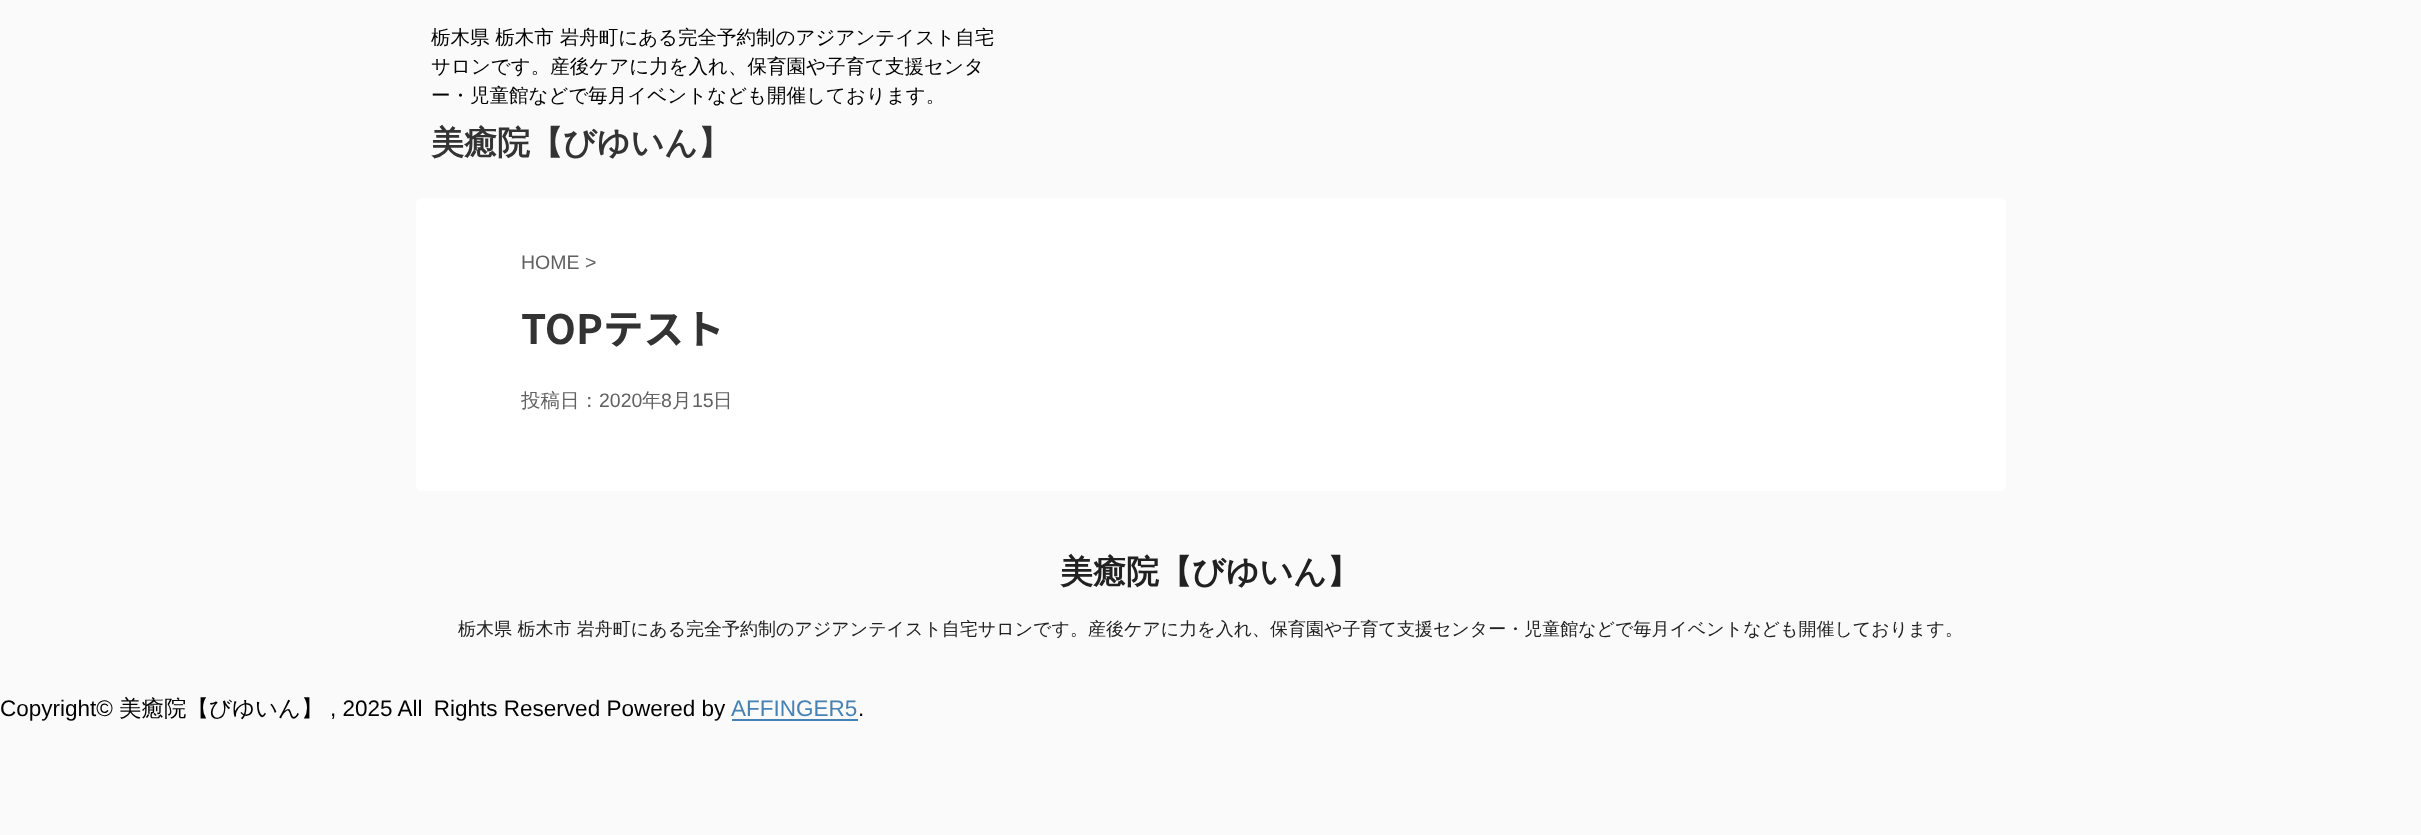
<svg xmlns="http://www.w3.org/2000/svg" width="2421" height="835">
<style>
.a{font:500 19.5px WenQuanYi Zen Hei;fill:#000}
.b{font:bold 33px WenQuanYi Zen Hei;fill:#333}
.c{font:19.5px Liberation Sans;fill:#616161}
.d{font:bold 40.5px Noto Sans JP;fill:#333}
.e{font:500 19.5px WenQuanYi Zen Hei;fill:#616161}
.f{font:bold 33px WenQuanYi Zen Hei;fill:#212121}
.g{font:500 18px WenQuanYi Zen Hei;fill:#212121}
.h{font:22.5px Liberation Sans;fill:#000}
.i{font:500 22.5px WenQuanYi Zen Hei;fill:#000}
.j{font:22.5px Liberation Sans;fill:#4682b4}
</style>
<rect width="100%" height="100%" fill="#fafafa"/>
<rect fill="#fff" x="416" y="198" width="1590" height="293" rx="6"/>
<path fill="#4682b4" d="M732 719h126v2H732z"/>
<text class="a" x="431" y="44">栃木県 栃木市 岩舟町にある完全予約制のアジアンテイスト自宅</text>
<text class="a" x="431" y="73">サロンです。産後ケアに力を入れ、保育園や子育て支援センタ</text>
<text class="a" x="431" y="102">ー・児童館などで毎月イベントなども開催しております。</text>
<text class="b" x="431" y="154">美癒院【びゆいん】</text>
<text class="c" x="521" y="269">HOME &gt;</text>
<text class="d" x="521" y="344">TOPテスト</text>
<text class="e" x="521" y="407">投稿日：</text>
<text class="c" x="599" y="407">2020</text>
<text class="e" x="642" y="407">年</text>
<text class="c" x="661" y="407">8</text>
<text class="e" x="672" y="407">月</text>
<text class="c" x="692" y="407">15</text>
<text class="e" x="713" y="407">日</text>
<text class="f" x="1060" y="583">美癒院【びゆいん】</text>
<text class="g" x="458" y="635">栃木県 栃木市 岩舟町にある完全予約制のアジアンテイスト自宅サロンです。産後ケアに力を入れ、保育園や子育て支援センター・児童館などで毎月イベントなども開催しております。</text>
<text class="h" x="0" y="716">Copyright©</text>
<text class="i" x="119" y="716">美癒院【びゆいん】</text>
<text class="h" x="330" y="716">, 2025 All Rights Reserved Powered by</text>
<text class="j" x="731" y="716">AFFINGER5</text>
<text class="h" x="858" y="716">.</text>
</svg>
